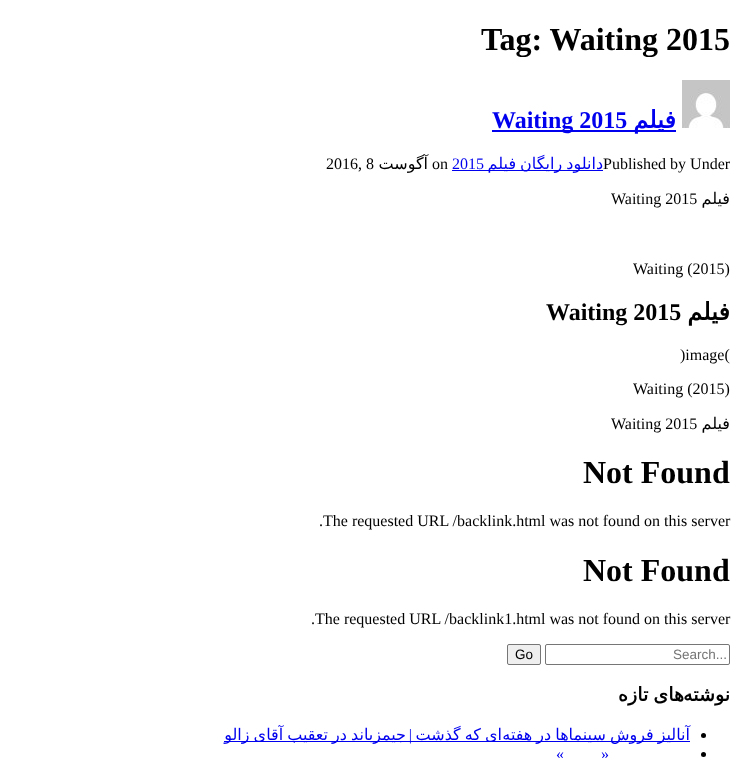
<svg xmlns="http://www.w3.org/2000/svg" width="738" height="758">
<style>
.a{font:bold 32px Liberation Serif;fill:#000}
.b{font:bold 24px Liberation Serif;fill:#00e}
.c{font:bold 24px DejaVu Sans;direction:rtl;fill:#00e}
.d{font:16px Liberation Serif;fill:#000}
.e{font:16px DejaVu Sans;direction:rtl;fill:#000}
.f{font:16px Liberation Serif;fill:#00e}
.g{font:16px DejaVu Sans;direction:rtl;fill:#00e}
.h{font:bold 24px Liberation Serif;fill:#000}
.i{font:bold 24px DejaVu Sans;direction:rtl;fill:#000}
.j{font:13.5px Liberation Sans;fill:#000}
.k{font:13.5px Liberation Sans;fill:#757575}
.l{font:bold 19px DejaVu Sans;direction:rtl;fill:#000}
.m{font:16px Liberation Serif;direction:rtl;fill:#00e}
</style>
<rect width="100%" height="100%" fill="#fff"/>
<path fill="#00e" d="M492 130h184v2H492z"/>
<image href="1.png" x="682" y="80" width="48" height="48"/>
<path fill="#00e" d="M452 170h151v1H452z"/>
<rect fill="#efefef" stroke="#767676" x="507.5" y="644.5" width="33" height="20" rx="1.5"/>
<rect fill="none" stroke="#767676" x="545.5" y="644.5" width="184" height="20" rx="1.5"/>
<path fill="#00e" d="M224 741h466v1H224z"/>
<circle fill="#000" cx="703.5" cy="735.5" r="2.5"/>
<circle fill="#000" cx="703.5" cy="754.5" r="2.5"/>
<text class="a" x="481" y="50">Tag: Waiting 2015</text>
<text class="b" x="492" y="128">Waiting 2015</text>
<text class="c" x="676" y="128">فیلم</text>
<text class="d" x="326" y="169">2016, 8</text>
<text class="e" x="428" y="169">آگوست</text>
<text class="d" x="432" y="169">on</text>
<text class="f" x="452" y="169">2015</text>
<text class="d" x="603" y="169">Published by Under</text>
<text class="g" x="603" y="169" word-spacing="-1">دانلود رایگان فیلم</text>
<text class="d" x="611" y="204">Waiting 2015</text>
<text class="e" x="730" y="204">فیلم</text>
<text class="d" x="633" y="274">Waiting (2015)</text>
<text class="h" x="546" y="320">Waiting 2015</text>
<text class="i" x="730" y="320">فیلم</text>
<text class="d" x="680" y="360">)image(</text>
<text class="d" x="633" y="394">Waiting (2015)</text>
<text class="d" x="611" y="429">Waiting 2015</text>
<text class="e" x="730" y="429">فیلم</text>
<text class="a" x="583" y="483">Not Found</text>
<text class="d" x="319" y="526">.The requested URL /backlink.html was not found on this server</text>
<text class="a" x="583" y="581">Not Found</text>
<text class="d" x="311" y="624">.The requested URL /backlink1.html was not found on this server</text>
<text class="j" x="515" y="659">Go</text>
<text class="k" x="673" y="659">Search...</text>
<text class="l" x="684" y="701" word-spacing="-1">های تازه</text>
<text class="l" x="730" y="701">نوشته</text>
<text class="g" x="406" y="740" word-spacing="-1">جیمزباند در تعقیب آقای زالو</text>
<text class="m" x="412" y="740">|</text>
<text class="g" x="502" y="740" word-spacing="-1">ای که گذشت</text>
<text class="g" x="690" y="740" word-spacing="-1">آنالیز فروش سینماها در هفته</text>
<text class="m" x="564" y="759">»</text>
<text class="m" x="609" y="759">«</text>
</svg>
